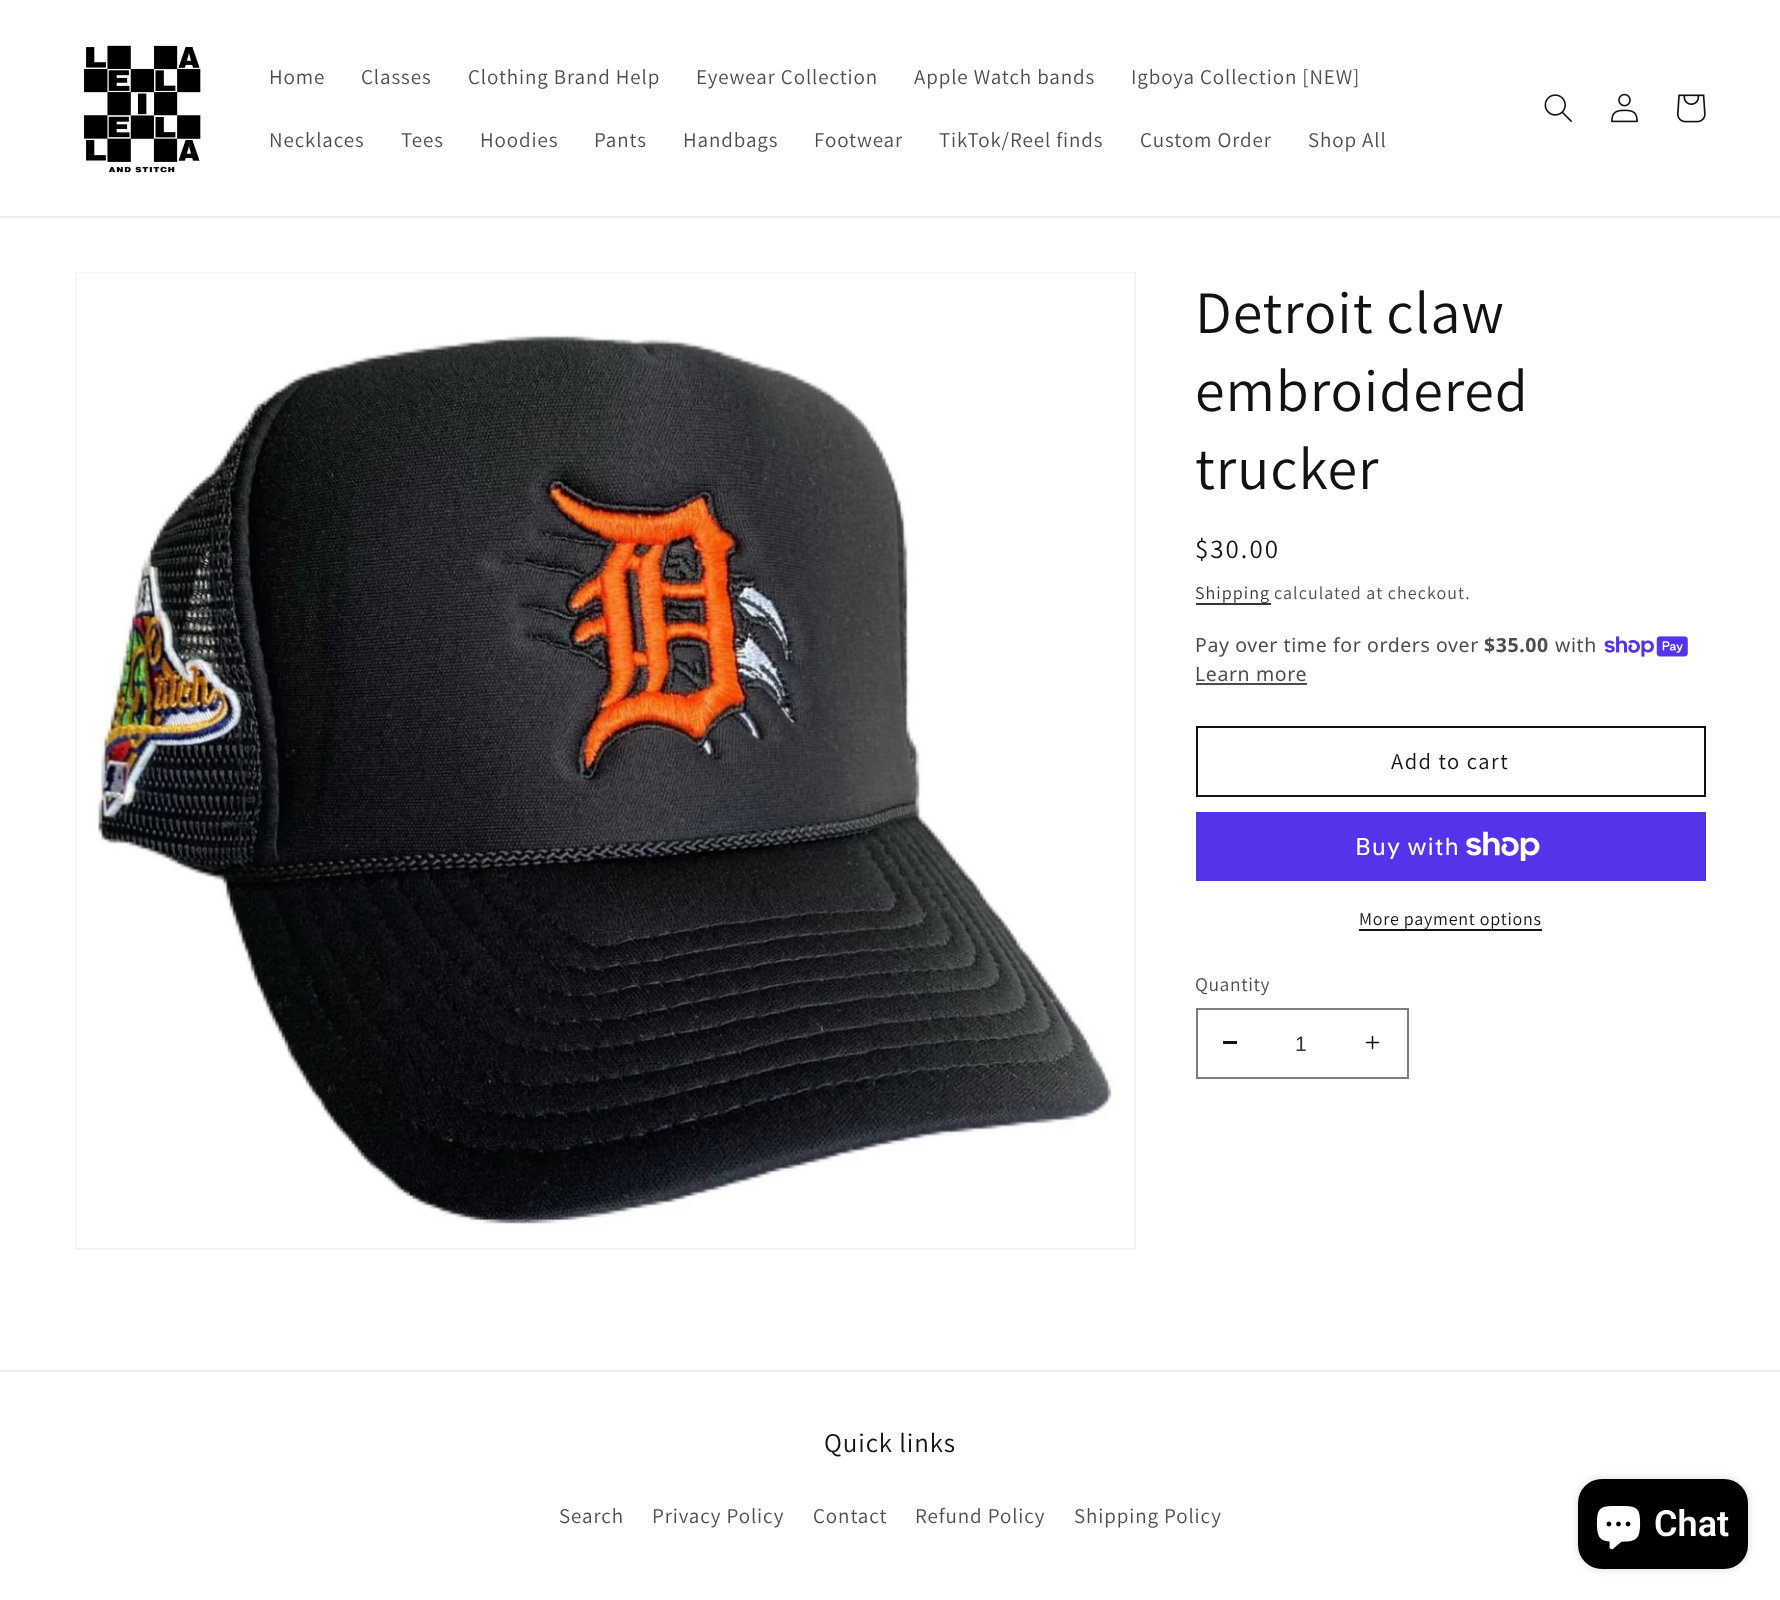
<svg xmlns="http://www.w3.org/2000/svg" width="1780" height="1600">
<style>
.a{font:21px Assistant;letter-spacing:0.9px;fill:#4d4d4d}
.b{font:60px Assistant;letter-spacing:0.9px;fill:#121212}
.c{font:27px Assistant;letter-spacing:2px;fill:#121212}
.d{font:18px Assistant;letter-spacing:1.05px;fill:#353535}
.e{font:18px Assistant;letter-spacing:1.05px;fill:#4d4d4d}
.f{font:19.5px Noto Sans;letter-spacing:0.6px;fill:#4d4d4d}
.g{font:bold 19.5px Noto Sans;letter-spacing:0.6px;fill:#4d4d4d}
.h{font:22.5px Assistant;letter-spacing:1.5px;fill:#121212}
.i{font:24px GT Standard;letter-spacing:0.9px;fill:#fff}
.j{font:18px Assistant;letter-spacing:0.75px;fill:#121212}
.k{font:19.5px Assistant;letter-spacing:0.6px;fill:#4d4d4d}
.l{font:21px Liberation Sans;fill:#353535}
.m{font:27px Assistant;letter-spacing:0.9px;fill:#121212}
.n{font:600 36px Roboto;fill:#fff}
</style>
<rect width="100%" height="100%" fill="#fff"/>
<path fill="#ececec" d="M0 216h1780v2H0z"/>
<image href="1.png" x="83" y="45" width="118" height="128"/>
<image href="2.png" x="1544" y="94" width="28" height="28"/>
<image href="3.png" x="1611" y="93" width="27" height="30"/>
<image href="4.png" x="1677" y="94" width="29" height="29"/>
<path fill="none" stroke="#f3f3f3" stroke-width="2" d="M76 273h1059v976H76z"/>
<image href="5.png" x="76" y="273" width="1058" height="975"/>
<path fill="#363636" d="M1196 603h75v2H1196z"/>
<image href="6.png" x="1604" y="636" width="84" height="21"/>
<path fill="#4d4d4d" d="M1196 683h111v2H1196z"/>
<path fill="none" stroke="#121212" stroke-width="2" d="M1197 727h508v69H1197z"/>
<path fill="#5433eb" d="M1196 812h510v69H1196z"/>
<image href="7.png" x="1466" y="831" width="74" height="30"/>
<path fill="#121212" d="M1359 929h183v2H1359z"/>
<path fill="#121212" d="M1223 1041h14v3H1223z"/>
<image href="8.png" x="1365" y="1035" width="15" height="15"/>
<path fill="none" stroke="#7d7d7d" stroke-width="2" d="M1197 1009h211v69H1197z"/>
<path fill="#ececec" d="M0 1370h1780v2H0z"/>
<rect fill="#00000026" filter="blur(4px)" x="1578" y="1479" width="170" height="90" rx="24"/>
<rect fill="#000" x="1578" y="1479" width="170" height="90" rx="24"/>
<image href="9.png" x="1596" y="1506" width="45" height="44"/>
<text class="a" x="269" y="84">Home</text>
<text class="a" x="361" y="84">Classes</text>
<text class="a" x="468" y="84">Clothing Brand Help</text>
<text class="a" x="696" y="84">Eyewear Collection</text>
<text class="a" x="914" y="84">Apple Watch bands</text>
<text class="a" x="1131" y="84">Igboya Collection [NEW]</text>
<text class="a" x="269" y="147">Necklaces</text>
<text class="a" x="401" y="147">Tees</text>
<text class="a" x="480" y="147">Hoodies</text>
<text class="a" x="594" y="147">Pants</text>
<text class="a" x="683" y="147">Handbags</text>
<text class="a" x="814" y="147">Footwear</text>
<text class="a" x="939" y="147">TikTok/Reel finds</text>
<text class="a" x="1140" y="147">Custom Order</text>
<text class="a" x="1308" y="147">Shop All</text>
<text class="b" x="1195" y="333">Detroit claw</text>
<text class="b" x="1195" y="411">embroidered</text>
<text class="b" x="1195" y="489">trucker</text>
<text class="c" x="1195" y="558">$30.00</text>
<text class="d" x="1195" y="599">Shipping</text>
<text class="e" x="1274" y="599">calculated at checkout.</text>
<text class="f" x="1195" y="652">Pay over time for orders over</text>
<text class="g" x="1484" y="652">$35.00</text>
<text class="f" x="1555" y="652">with</text>
<text class="f" x="1195" y="681">Learn more</text>
<text class="h" x="1391" y="769">Add to cart</text>
<text class="i" x="1355" y="855">Buy with</text>
<text class="j" x="1359" y="925">More payment options</text>
<text class="k" x="1195" y="991">Quantity</text>
<text class="l" x="1295" y="1051">1</text>
<text class="m" x="824" y="1452">Quick links</text>
<text class="a" x="559" y="1523">Search</text>
<text class="a" x="652" y="1523">Privacy Policy</text>
<text class="a" x="813" y="1523">Contact</text>
<text class="a" x="915" y="1523">Refund Policy</text>
<text class="a" x="1074" y="1523">Shipping Policy</text>
<text class="n" x="1654" y="1536">Chat</text>
</svg>
